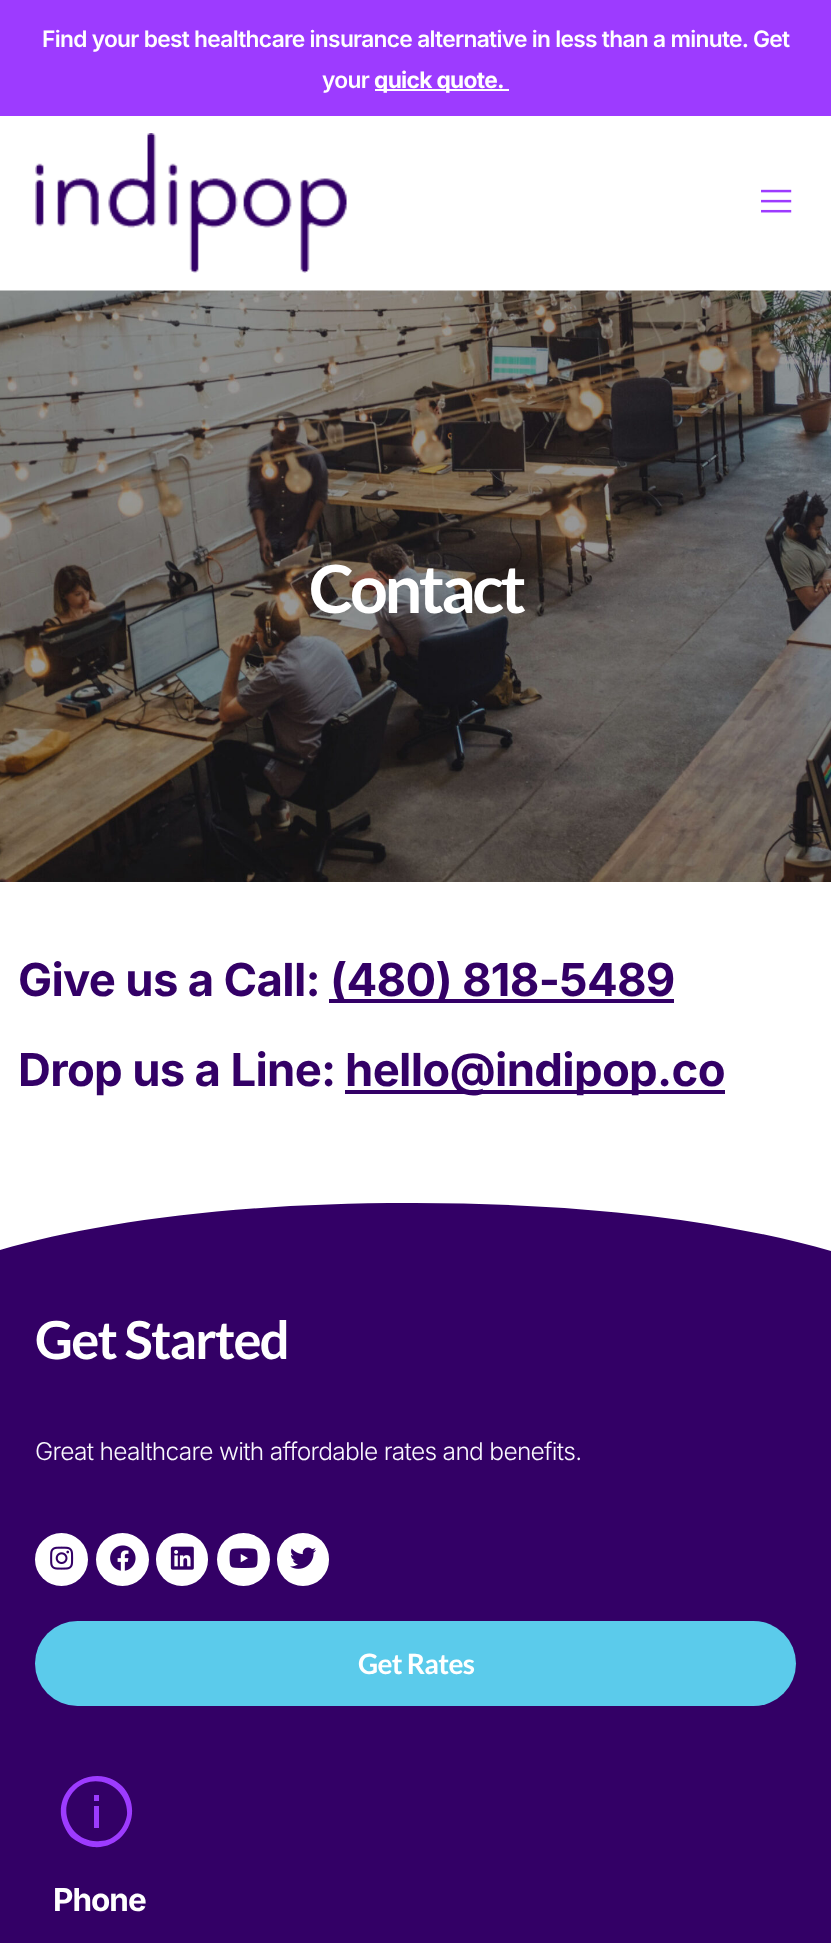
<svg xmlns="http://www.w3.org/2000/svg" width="831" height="1943">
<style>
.a{font:600 22.75px Inter;letter-spacing:-0.7px;fill:#fff}
.b{font:bold 22.75px Inter;letter-spacing:-0.7px;fill:#fff}
.c{font:bold 66.5px Lato;letter-spacing:-3.5px;fill:#fff}
.d{font:bold 45.5px Inter;letter-spacing:-0.7px;fill:#306}
.e{font:bold 52.5px Lato;letter-spacing:-1.75px;fill:#fff}
.f{font:300 24.5px Inter;letter-spacing:-0.7px;fill:#faf9fe}
.g{font:bold 28px Lato;letter-spacing:-0.7px;fill:#fff}
.h{font:bold 31.5px Inter;letter-spacing:-1px;fill:#fff}
</style>
<defs>
<clipPath id="clip1"><path d="M0 1201h831v145H0z"/></clipPath>
</defs>
<rect width="100%" height="100%" fill="#fff"/>
<path fill="#9d3bff" d="M0 0h831v116H0z"/>
<path fill="#fff" d="M375 89h134v2H375z"/>
<image href="1.png" x="35" y="133" width="312" height="140"/>
<image href="2.png" x="761" y="189" width="31" height="24"/>
<image href="3.png" x="0" y="290" width="831" height="592"/>
<path fill="#306" d="M329 999h345v4H329z"/>
<path fill="#306" d="M345 1090h380v4H345z"/>
<path fill="#306" d="M0 1203h831v740H0z"/>
<g clip-path="url(#clip1)">
<path fill="#fff" d="M415 1203c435 1 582 112 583 141v-145h-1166v144c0-27 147-141 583-140z"/>
</g>
<circle fill="#fff" cx="61.5" cy="1559.5" r="26.5"/>
<image href="4.png" x="50" y="1546" width="24" height="24"/>
<circle fill="#fff" cx="122.5" cy="1559.5" r="26.5"/>
<image href="5.png" x="110" y="1545" width="26" height="26"/>
<rect fill="#fff" x="156" y="1533" width="52" height="53" rx="26"/>
<image href="6.png" x="170" y="1546" width="24" height="24"/>
<circle fill="#fff" cx="243.5" cy="1559.5" r="26.5"/>
<image href="7.png" x="229" y="1548" width="29" height="20"/>
<rect fill="#fff" x="277" y="1533" width="52" height="53" rx="26"/>
<image href="8.png" x="290" y="1547" width="26" height="22"/>
<rect fill="#5bcbeb" x="35" y="1621" width="761" height="85" rx="42.5"/>
<path fill="#9d3bff" d="M122 1786c-24-23-64-4-61 29c1 8 5 16 10 22c6 5 14 9 22 10c33 3 52-37 29-61zm-47 4c20-20 54-3 52 25c-1 6-4 13-9 18c-5 5-11 8-18 8c-28 3-45-31-25-51zm19 5v6h5v-6zm0 11v22h5v-22z"/>
<text class="a" x="42" y="47">Find your best healthcare insurance alternative in less than a minute. Get</text>
<text class="a" x="322" y="88">your</text>
<text class="b" x="374" y="88">quick quote.</text>
<text class="c" x="309" y="613">Contact</text>
<text class="d" x="18" y="996">Give us a Call:</text>
<text class="d" x="330" y="996">(480) 818-5489</text>
<text class="d" x="18" y="1086">Drop us a Line:</text>
<text class="d" x="345" y="1086">hello@indipop.co</text>
<text class="e" x="35" y="1359">Get Started</text>
<text class="f" x="35" y="1460">Great healthcare with affordable rates and benefits.</text>
<text class="g" x="358" y="1674">Get Rates</text>
<text class="h" x="53" y="1911">Phone</text>
</svg>
